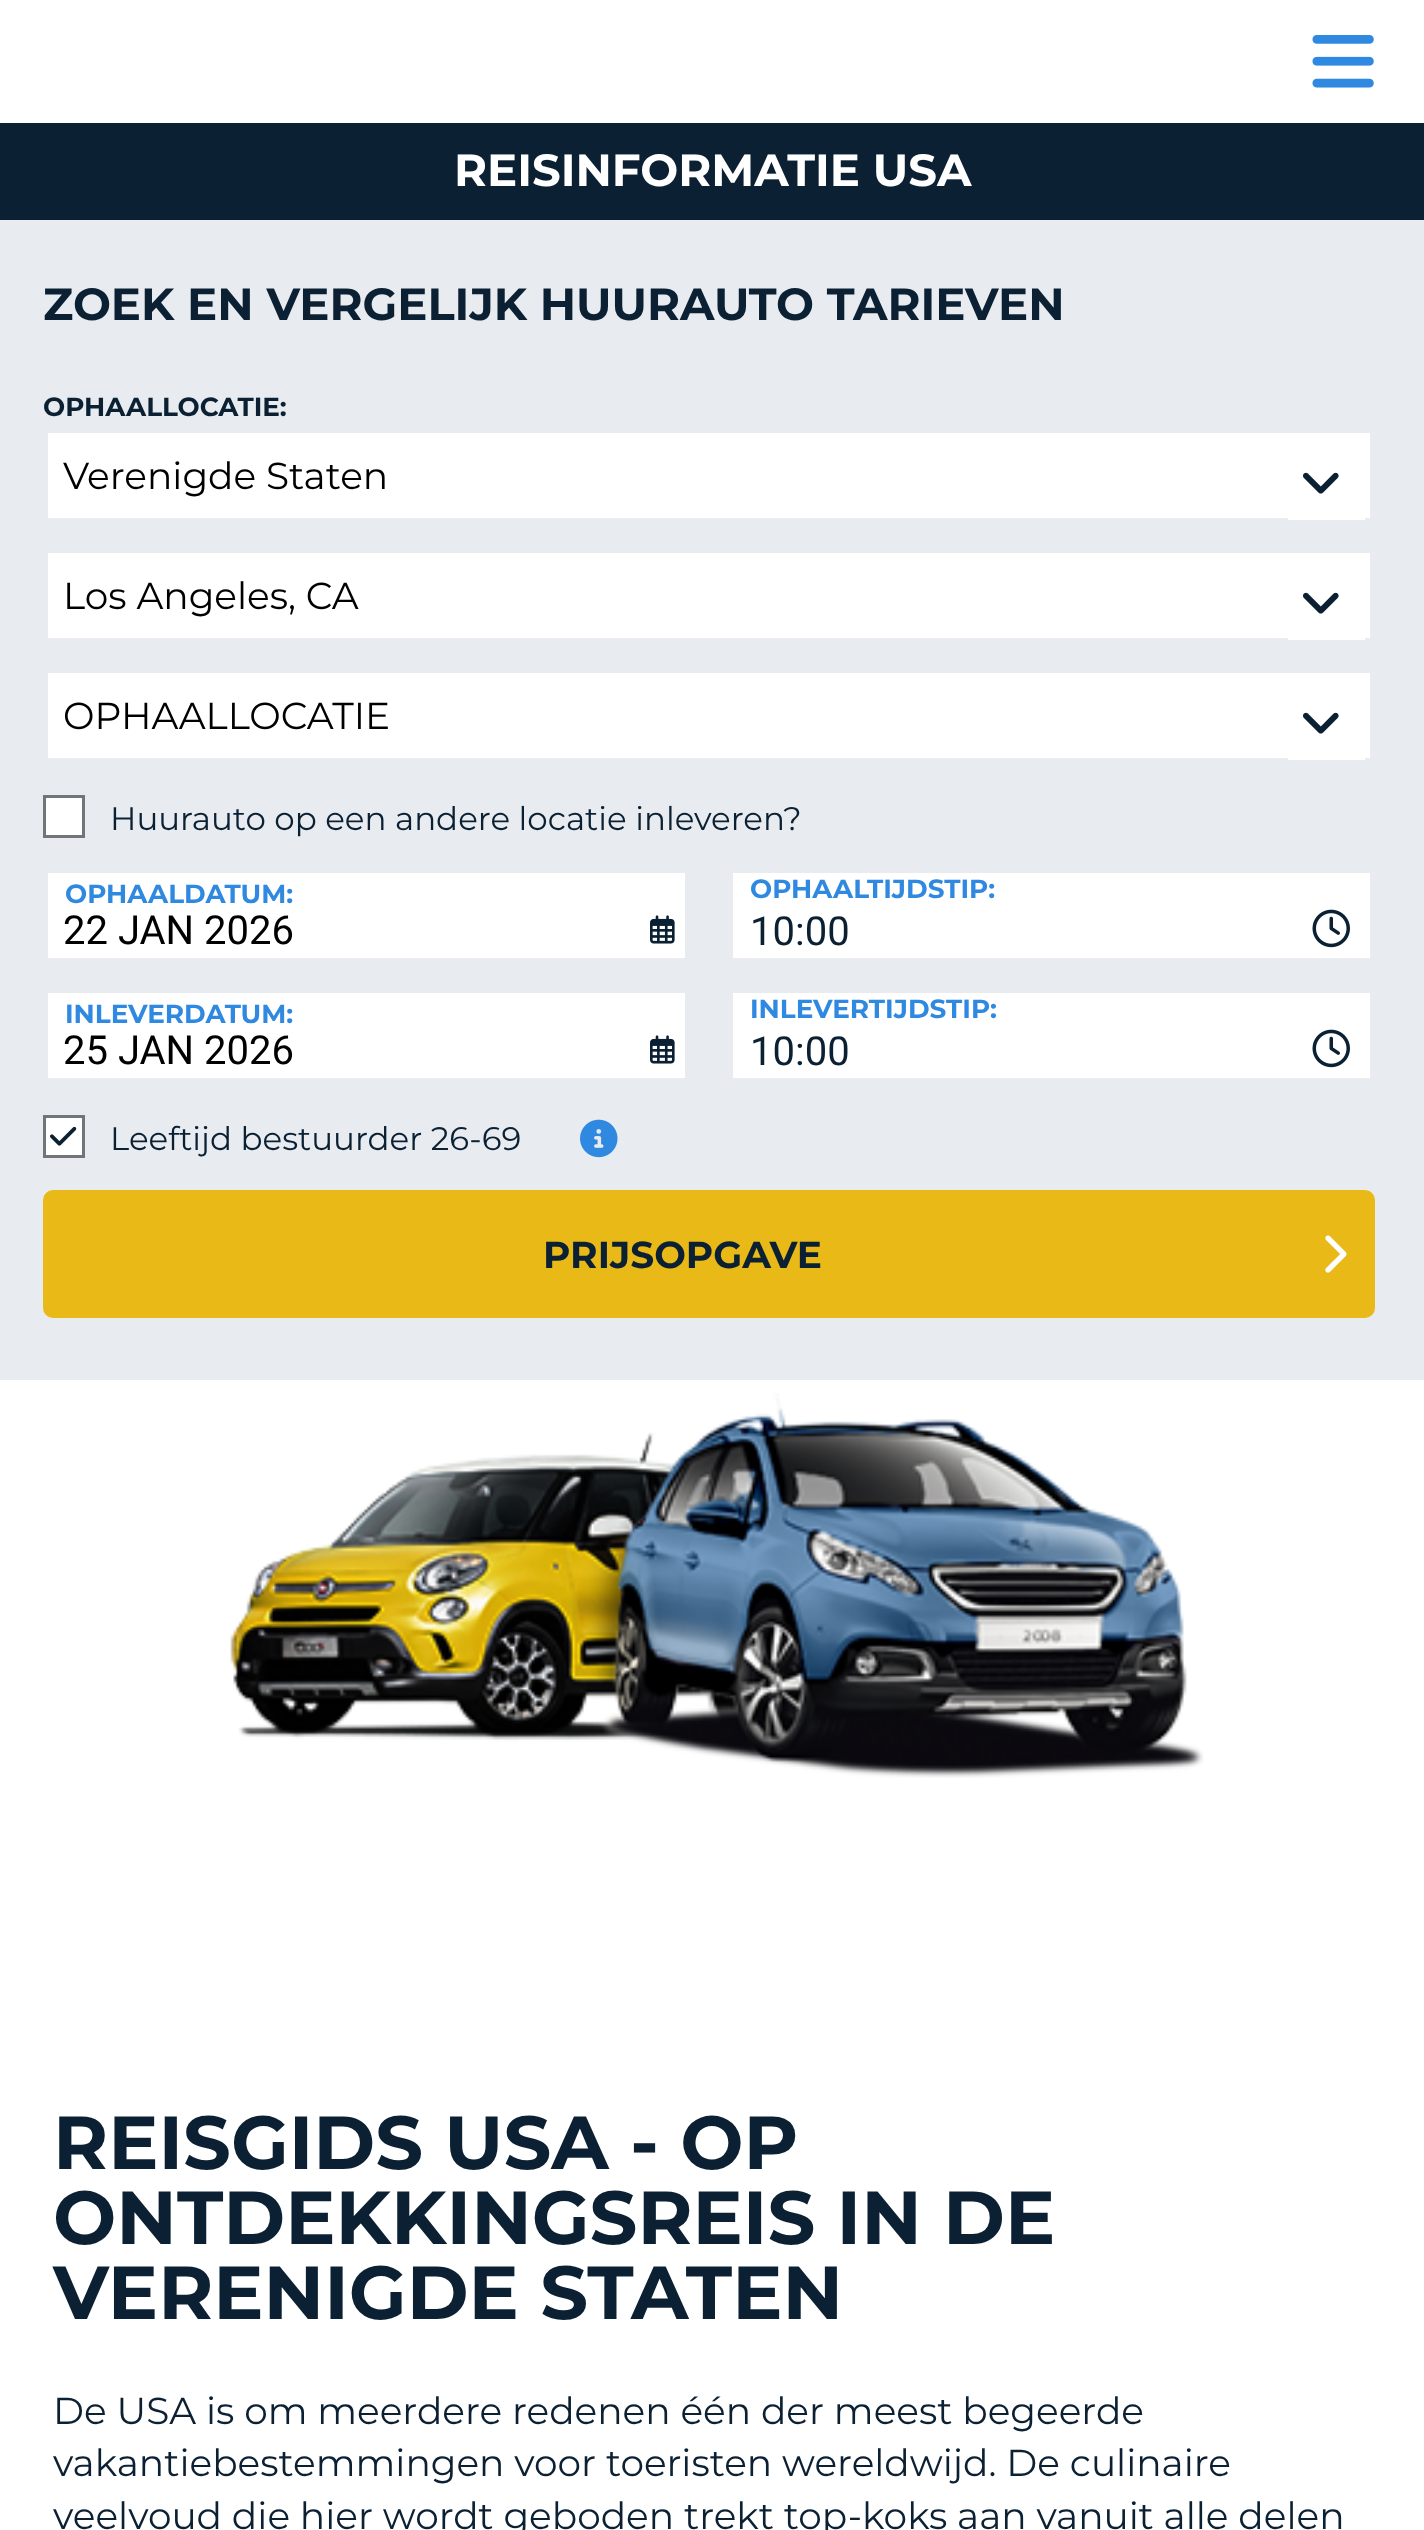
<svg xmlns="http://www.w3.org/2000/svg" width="1424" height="2530">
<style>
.a{font:bold 45px Montserrat;fill:#fff}
.b{font:bold 45px Montserrat;fill:#0b2033}
.c{font:bold 26.25px Montserrat;fill:#0b2033}
.d{font:37.5px Montserrat;fill:#000}
.e{font:32.5px Montserrat;fill:#0b2033}
.f{font:bold 26.25px Montserrat;fill:#3089e0}
.g{font:40px Roboto;fill:#000}
.h{font:40px Roboto;fill:#0b2033}
.i{font:bold 37.5px Montserrat;fill:#0b2033}
.j{font:bold 75px Montserrat;fill:#0b2033}
.k{font:37.5px Montserrat;fill:#0b2033}
</style>
<rect width="100%" height="100%" fill="#fff"/>
<image href="1.png" x="1312" y="35" width="62" height="53"/>
<path fill="#0b2033" d="M0 123h1424v97H0z"/>
<path fill="#e8ecf0" d="M0 220h1424v1160H0z"/>
<path fill="#fff" d="M48 433h1322v85H48z"/>
<path fill="#fff" d="M1288 518h77v2H1288z"/>
<image href="2.png" x="1303" y="472" width="36" height="22"/>
<path fill="#fff" d="M48 553h1322v85H48z"/>
<path fill="#fff" d="M1288 638h77v2H1288z"/>
<image href="2.png" x="1303" y="592" width="36" height="22"/>
<path fill="#fff" d="M48 673h1322v85H48z"/>
<path fill="#fff" d="M1288 758h77v2H1288z"/>
<image href="2.png" x="1303" y="712" width="36" height="22"/>
<path fill="#fff" stroke="#6f7579" stroke-width="3" d="M44.5 796.5h39v40H44.5z"/>
<path fill="#fff" d="M48 873h637v85H48z"/>
<image href="3.png" x="650" y="915" width="25" height="29"/>
<path fill="#fff" d="M733 873h637v85H733z"/>
<image href="4.png" x="1312" y="909" width="38" height="39"/>
<path fill="#fff" d="M48 993h637v85H48z"/>
<image href="3.png" x="650" y="1035" width="25" height="29"/>
<path fill="#fff" d="M733 993h637v85H733z"/>
<image href="4.png" x="1312" y="1029" width="38" height="39"/>
<path fill="#fff" stroke="#6f7579" stroke-width="3" d="M44.5 1116.5h39v40H44.5z"/>
<image href="5.png" x="50" y="1126" width="27" height="20"/>
<image href="6.png" x="580" y="1119" width="38" height="39"/>
<rect fill="#e8b917" stroke="#e8b917" stroke-width="3" x="44.5" y="1191.5" width="1329" height="125" rx="8.5"/>
<image href="7.png" x="1325" y="1235" width="22" height="38"/>
<image href="8.png" x="230" y="1393" width="974" height="385"/>
<text class="a" x="454" y="186">REISINFORMATIE USA</text>
<text class="b" x="43" y="320">ZOEK EN VERGELIJK HUURAUTO TARIEVEN</text>
<text class="c" x="43" y="416">OPHAALLOCATIE:</text>
<text class="d" x="63" y="489">Verenigde Staten</text>
<text class="d" x="63" y="609">Los Angeles, CA</text>
<text class="d" x="63" y="729">OPHAALLOCATIE</text>
<text class="e" x="110" y="830">Huurauto op een andere locatie inleveren?</text>
<text class="f" x="65" y="903">OPHAALDATUM:</text>
<text class="g" x="63" y="944">22 JAN 2026</text>
<text class="f" x="750" y="898">OPHAALTIJDSTIP:</text>
<text class="h" x="750" y="945">10:00</text>
<text class="f" x="65" y="1023">INLEVERDATUM:</text>
<text class="g" x="63" y="1064">25 JAN 2026</text>
<text class="f" x="750" y="1018">INLEVERTIJDSTIP:</text>
<text class="h" x="750" y="1065">10:00</text>
<text class="e" x="110" y="1150">Leeftijd bestuurder 26-69</text>
<text class="i" x="543" y="1268">PRIJSOPGAVE</text>
<text class="j" x="53" y="2169">REISGIDS USA - OP</text>
<text class="j" x="53" y="2244">ONTDEKKINGSREIS IN DE</text>
<text class="j" x="53" y="2319">VERENIGDE STATEN</text>
<text class="k" x="53" y="2424">De USA is om meerdere redenen één der meest begeerde</text>
<text class="k" x="53" y="2476">vakantiebestemmingen voor toeristen wereldwijd. De culinaire</text>
<text class="k" x="53" y="2529">veelvoud die hier wordt geboden trekt top-koks aan vanuit alle delen</text>
</svg>
